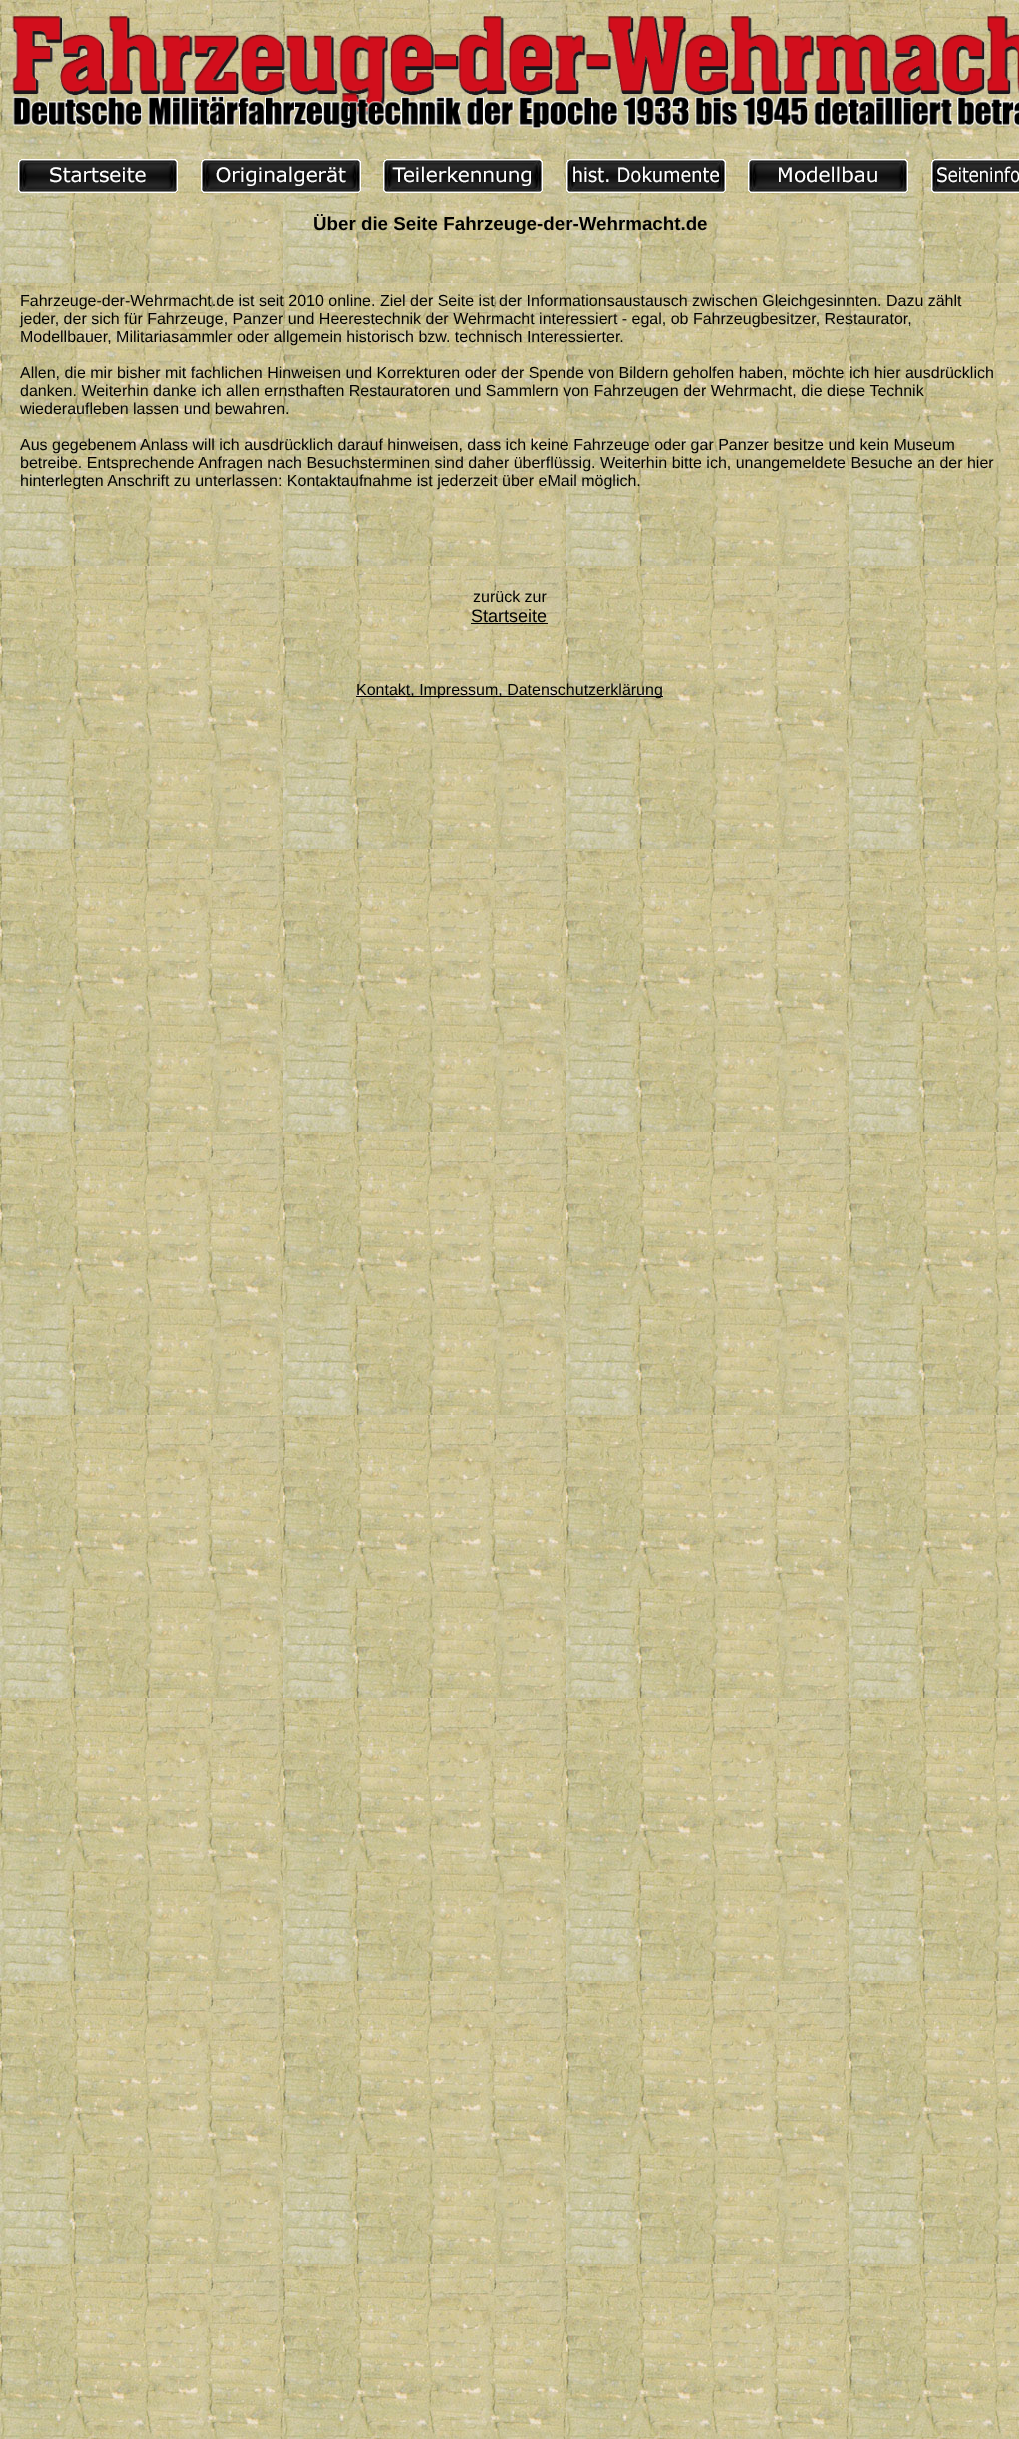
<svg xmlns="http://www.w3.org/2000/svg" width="1019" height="2439">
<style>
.a{font:bold 18.75px Liberation Sans;fill:#000}
.b{font:16px Liberation Sans;fill:#000}
.c{font:18px Liberation Sans;fill:#000}
</style>
<rect width="100%" height="100%" fill="#fff"/>
<image href="1.png" x="0" y="0" width="1019" height="2439"/>
<image href="2.png" x="12" y="16" width="1007" height="114"/>
<image href="3.png" x="18" y="159" width="160" height="34"/>
<image href="4.png" x="201" y="159" width="160" height="34"/>
<image href="5.png" x="383" y="159" width="160" height="34"/>
<image href="6.png" x="566" y="159" width="160" height="34"/>
<image href="7.png" x="748" y="159" width="160" height="34"/>
<image href="8.png" x="931" y="159" width="88" height="34"/>
<path fill="#000" d="M471 623h77v1H471z"/>
<path fill="#000" d="M356 696h307v1H356z"/>
<text class="a" x="313" y="230">Über die Seite Fahrzeuge-der-Wehrmacht.de</text>
<text class="b" x="20" y="306">Fahrzeuge-der-Wehrmacht.de ist seit 2010 online. Ziel der Seite ist der Informationsaustausch zwischen Gleichgesinnten. Dazu zählt</text>
<text class="b" x="20" y="324">jeder, der sich für Fahrzeuge, Panzer und Heerestechnik der Wehrmacht interessiert - egal, ob Fahrzeugbesitzer, Restaurator,</text>
<text class="b" x="20" y="342">Modellbauer, Militariasammler oder allgemein historisch bzw. technisch Interessierter.</text>
<text class="b" x="20" y="378">Allen, die mir bisher mit fachlichen Hinweisen und Korrekturen oder der Spende von Bildern geholfen haben, möchte ich hier ausdrücklich</text>
<text class="b" x="20" y="396">danken. Weiterhin danke ich allen ernsthaften Restauratoren und Sammlern von Fahrzeugen der Wehrmacht, die diese Technik</text>
<text class="b" x="20" y="414">wiederaufleben lassen und bewahren.</text>
<text class="b" x="20" y="450">Aus gegebenem Anlass will ich ausdrücklich darauf hinweisen, dass ich keine Fahrzeuge oder gar Panzer besitze und kein Museum</text>
<text class="b" x="20" y="468">betreibe. Entsprechende Anfragen nach Besuchsterminen sind daher überflüssig. Weiterhin bitte ich, unangemeldete Besuche an der hier</text>
<text class="b" x="20" y="486">hinterlegten Anschrift zu unterlassen: Kontaktaufnahme ist jederzeit über eMail möglich.</text>
<text class="b" x="473" y="602">zurück zur</text>
<text class="c" x="471" y="622">Startseite</text>
<text class="b" x="356" y="695">Kontakt, Impressum, Datenschutzerklärung</text>
</svg>
